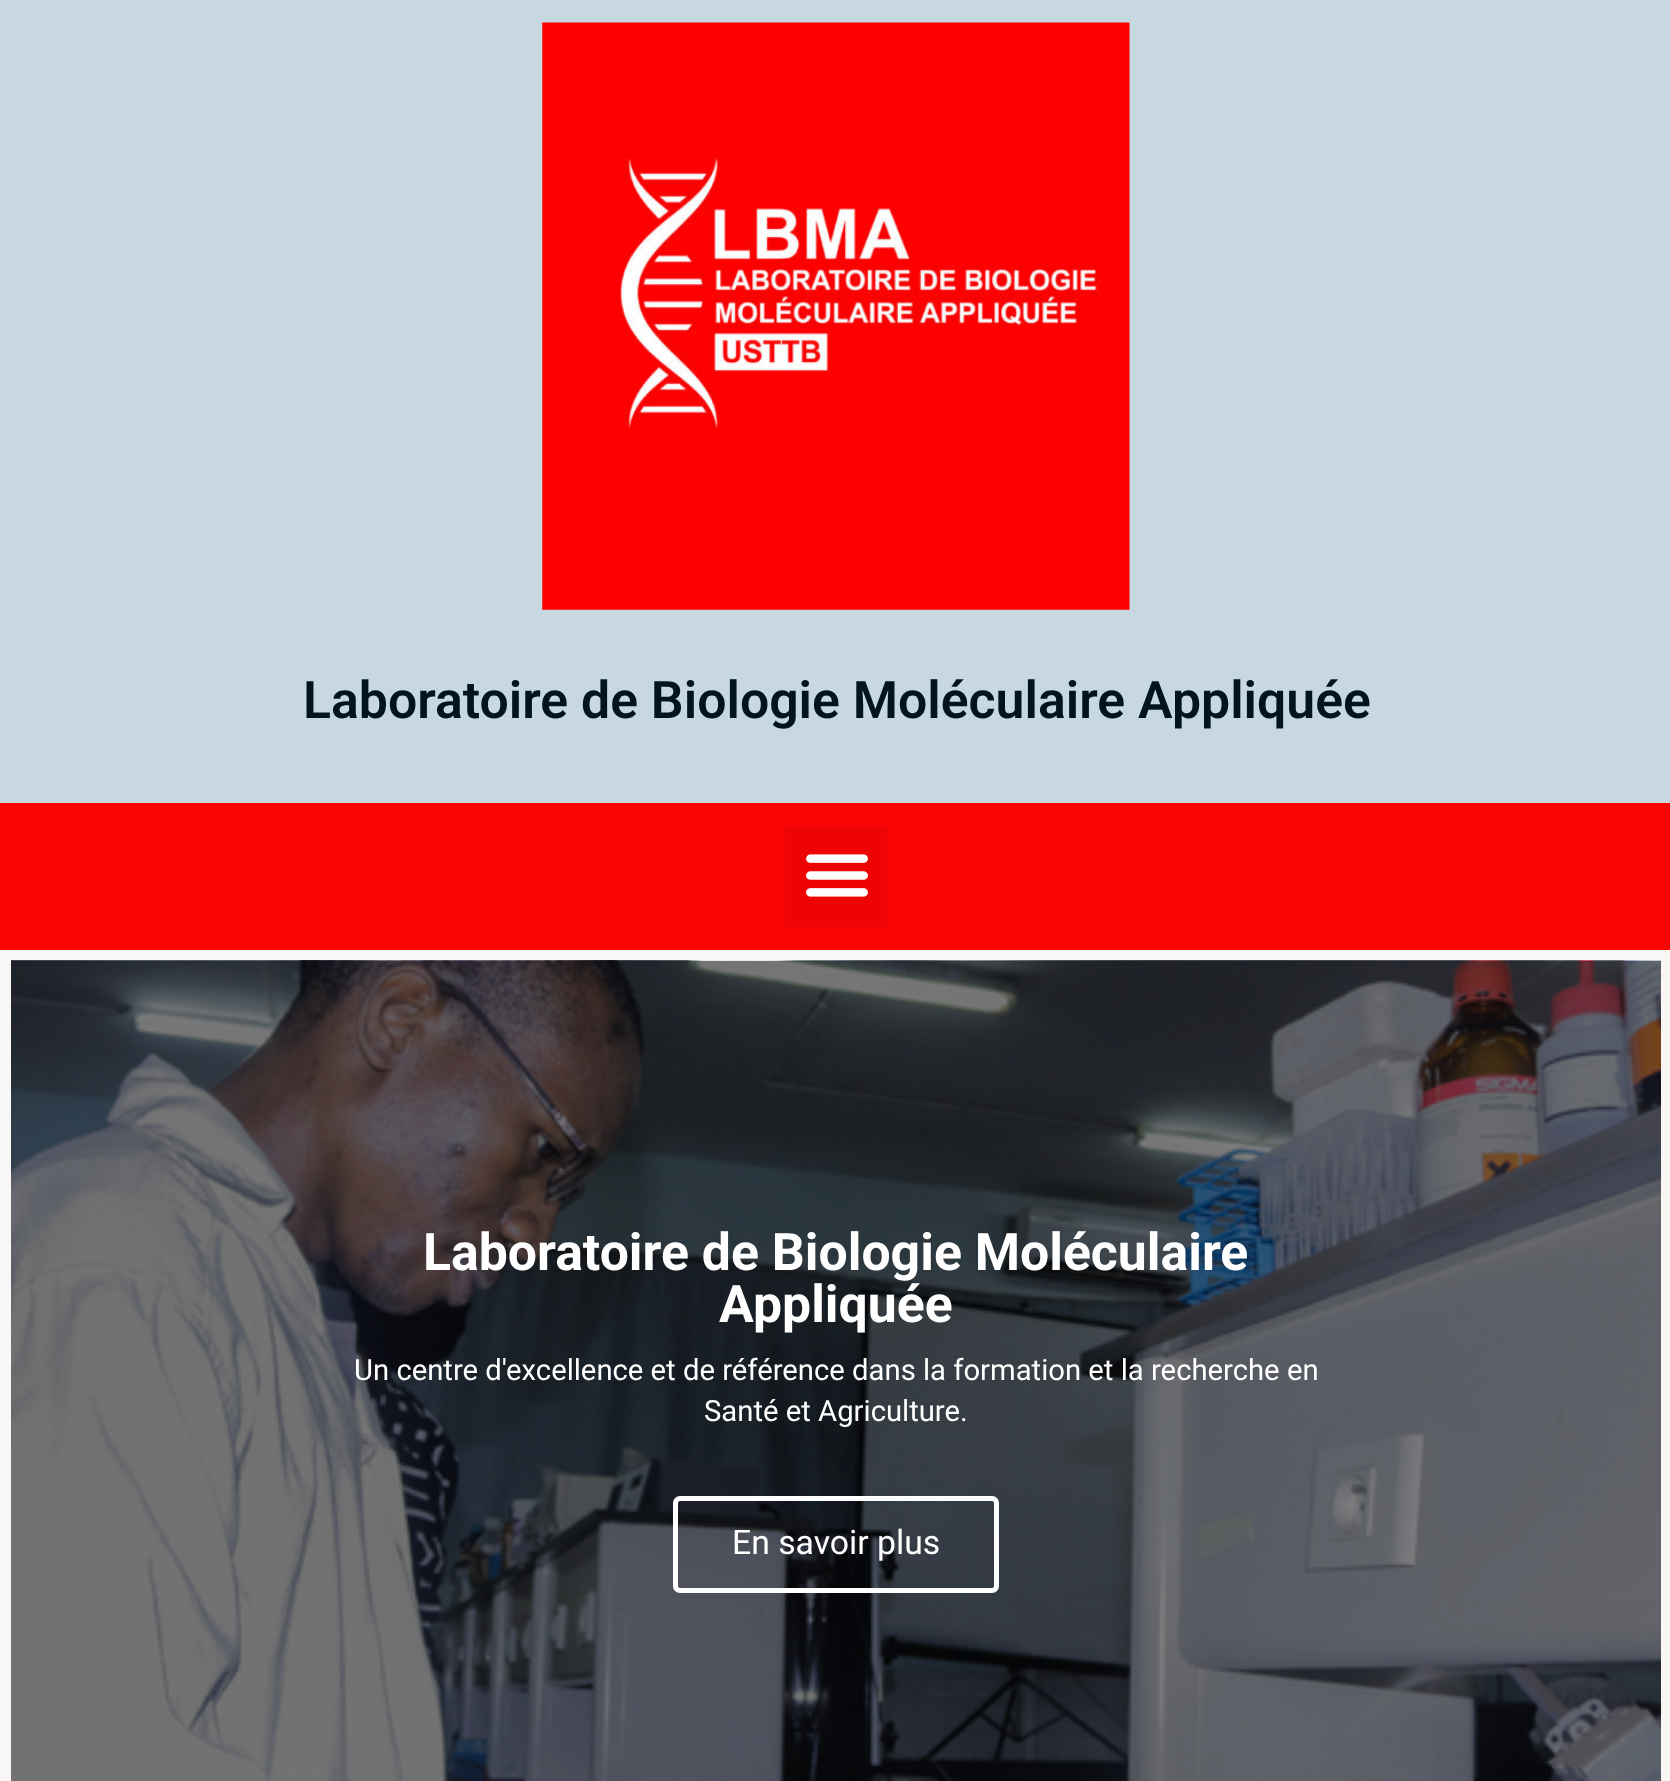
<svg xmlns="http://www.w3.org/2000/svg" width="1670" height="1781">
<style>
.a{font:600 51.75px Roboto;fill:#00151d}
.b{font:bold 51.75px Roboto;fill:#fff}
.c{font:29.25px Roboto;fill:#fff}
.d{font:33.75px Roboto;fill:#fff}
</style>
<rect width="100%" height="100%" fill="#f9f6f6"/>
<path fill="#c8d8e0" d="M0 0h1670v803H0z"/>
<image href="1.png" x="542" y="22" width="588" height="588"/>
<path fill="#fb0404" d="M0 803h1670v147H0z"/>
<path fill="#ee0404" d="M785 826h102v101H785z"/>
<image href="2.png" x="806" y="854" width="62" height="43"/>
<image href="3.png" x="11" y="960" width="1650" height="821"/>
<rect fill="none" stroke="#fff" stroke-width="5" x="675.5" y="1498.5" width="321" height="92" rx="4.5"/>
<text class="a" x="303" y="718">Laboratoire de Biologie Moléculaire Appliquée</text>
<text class="b" x="423" y="1270">Laboratoire de Biologie Moléculaire</text>
<text class="b" x="719" y="1322">Appliquée</text>
<text class="c" x="354" y="1380">Un centre d'excellence et de référence dans la formation et la recherche en</text>
<text class="c" x="704" y="1421">Santé et Agriculture.</text>
<text class="d" x="732" y="1554">En savoir plus</text>
</svg>
